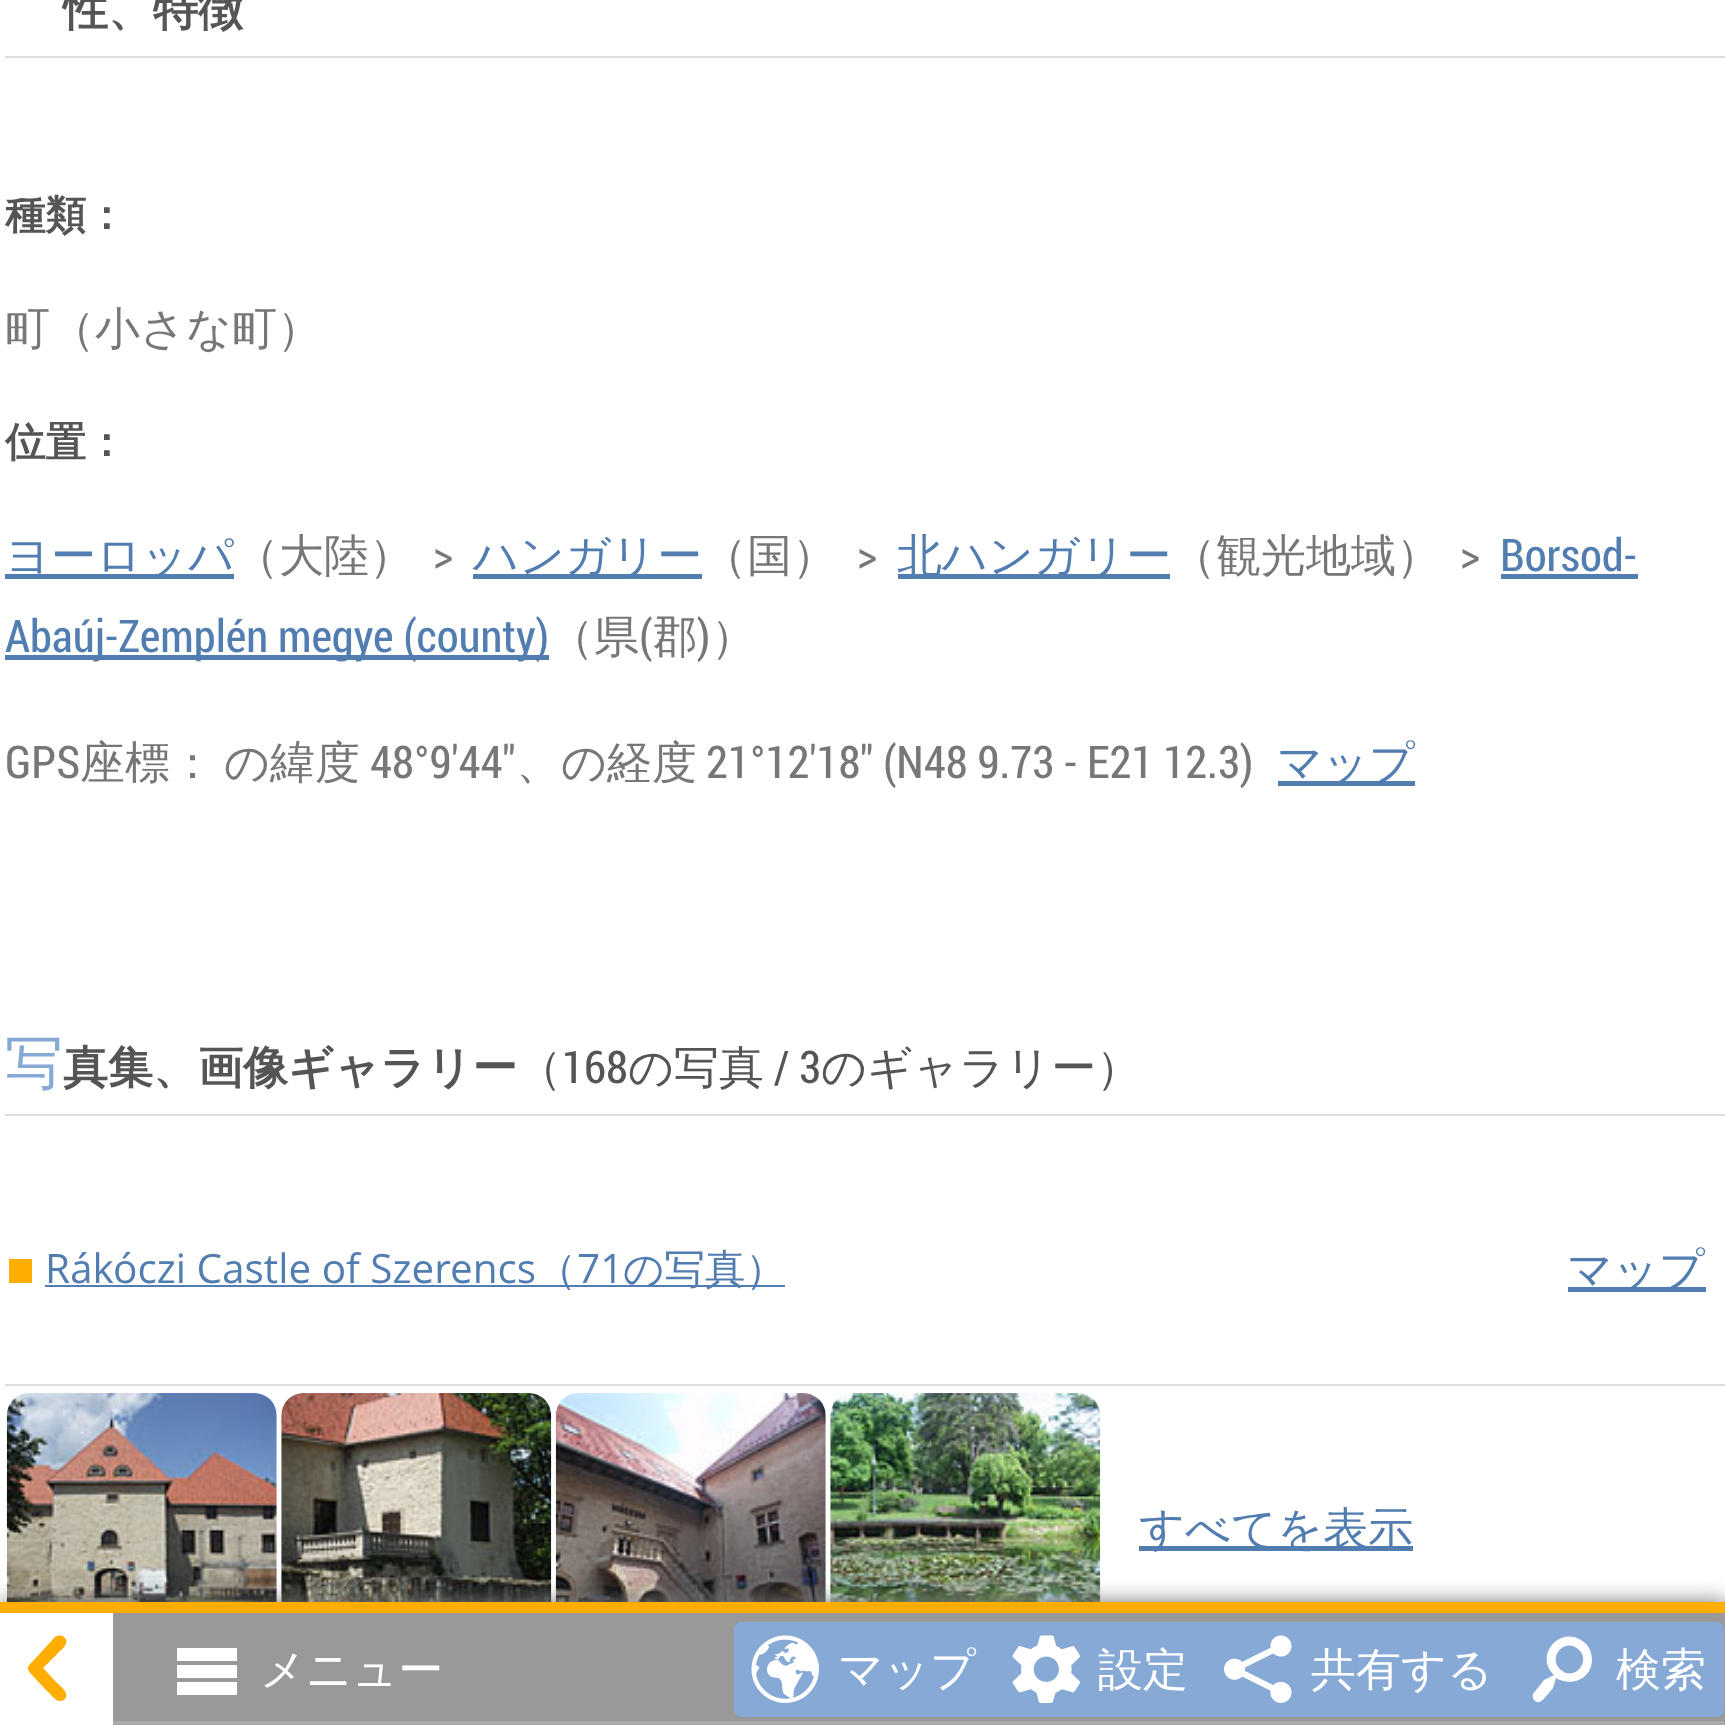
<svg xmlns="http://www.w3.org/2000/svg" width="1725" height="1725">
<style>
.a{font:bold 45px WenQuanYi Zen Hei;fill:#555}
.b{font:bold 40.5px WenQuanYi Zen Hei;fill:#555}
.c{font:500 45px WenQuanYi Zen Hei;fill:#777}
.d{font:500 45px WenQuanYi Zen Hei;fill:#517db0}
.e{font:45px Roboto Condensed;fill:#777}
.f{font:45px Roboto Condensed;fill:#517db0}
.g{font:100 58px Noto Sans;fill:#86a9d6}
.h{font:500 45px WenQuanYi Zen Hei;fill:#555}
.i{font:45px Roboto Condensed;fill:#555}
.j{font:40.5px Open Sans;fill:#517db0}
.k{font:500 40.5px WenQuanYi Zen Hei;fill:#517db0}
.l{font:500 45px WenQuanYi Zen Hei;fill:#fff}
</style>
<rect width="100%" height="100%" fill="#fff"/>
<path fill="#ddd" d="M5 56h1720v2H5z"/>
<path fill="#517db0" d="M5 574h229v5H5z"/>
<path fill="#517db0" d="M473 574h229v5H473z"/>
<path fill="#517db0" d="M898 574h272v5H898z"/>
<path fill="#517db0" d="M1501 574h137v5H1501z"/>
<path fill="#517db0" d="M5 655h544v5H5z"/>
<path fill="#517db0" d="M1278 781h137v5H1278z"/>
<path fill="#ddd" d="M5 1114h1720v2H5z"/>
<path fill="#ffae00" d="M9 1259h23v24H9z"/>
<path fill="#517db0" d="M45 1285h740v2H45z"/>
<path fill="#517db0" d="M1568 1287h138v5H1568z"/>
<path fill="#ddd" d="M5 1384h1720v2H5z"/>
<image href="1.png" x="6" y="1393" width="271" height="209"/>
<image href="2.png" x="281" y="1393" width="271" height="209"/>
<image href="3.png" x="555" y="1393" width="271" height="209"/>
<image href="4.png" x="830" y="1393" width="271" height="209"/>
<path fill="#517db0" d="M1139 1546h274v5H1139z"/>
<path fill="#777" filter="blur(11px)" d="M0 1602h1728v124H0z"/>
<path fill="#999" d="M113 1613h1612v112H113z"/>
<path fill="#ffae00" d="M0 1602h1725v11H0z"/>
<path fill="#aaa" d="M113 1721h1611v4H113z"/>
<path fill="#fff" d="M0 1613h113v112H0z"/>
<path fill="#ffae00" d="M55 1637c3-2 7-2 9 0c7 6-3 13-7 17l-14 14l14 15c3 3 13 10 8 16c-1 1-3 2-5 2c-5 0-10-8-14-11l-14-15c-7-7-4-9 2-15z"/>
<path fill="#fff" d="M177 1648v13h60v-13zm0 17v13h60v-13zm0 17v13h60v-13z"/>
<rect fill="#86a9d6" x="734" y="1622" width="990" height="95" rx="7"/>
<image href="5.png" x="751" y="1635" width="68" height="68"/>
<image href="6.png" x="1012" y="1635" width="68" height="68"/>
<image href="7.png" x="1224" y="1635" width="68" height="68"/>
<path fill="#fff" d="M1587 1674c5-6 6-14 4-21c-1-5-5-10-10-13c-22-14-47 16-27 35l-10 5l-11 14c-1 2 0 4 1 6c6 6 10-2 14-6l5-6l3-10c10 6 23 5 31-4zm-26-4c-14-12 3-33 17-21c14 11-3 33-17 21z"/>
<text class="a" x="63" y="25">性、特徴</text>
<text class="b" x="5" y="229">種類：</text>
<text class="c" x="5" y="344">町（小さな町）</text>
<text class="b" x="5" y="456">位置：</text>
<text class="d" x="5" y="571">ヨーロッパ</text>
<text class="c" x="234" y="571">（大陸）</text>
<text class="e" x="433" y="571">&gt;</text>
<text class="d" x="473" y="571">ハンガリー</text>
<text class="c" x="702" y="571">（国）</text>
<text class="e" x="857" y="571">&gt;</text>
<text class="d" x="897" y="571">北ハンガリー</text>
<text class="c" x="1171" y="571">（観光地域）</text>
<text class="e" x="1460" y="571">&gt;</text>
<text class="f" x="1500" y="571">Borsod-</text>
<text class="f" x="5" y="652">Abaúj-Zemplén megye (county)</text>
<text class="c" x="549" y="652">（県 郡 ）</text>
<text class="e" x="639" y="652">(</text>
<text class="e" x="697" y="652">)</text>
<text class="e" x="5" y="778">GPS</text>
<text class="c" x="80" y="778">座標：</text>
<text class="c" x="224" y="778">の緯度</text>
<text class="e" x="370" y="778">48°9'44"</text>
<text class="c" x="516" y="778">、の経度</text>
<text class="e" x="706" y="778">21°12'18" (N48 9.73 - E21 12.3)</text>
<text class="d" x="1277" y="778">マップ</text>
<text class="g" x="5" y="1083">写</text>
<text class="a" x="63" y="1083">真集、画像ギャラリー</text>
<text class="h" x="517" y="1083">（</text>
<text class="i" x="562" y="1083">168</text>
<text class="h" x="628" y="1083">の写真</text>
<text class="i" x="774" y="1083">/ 3</text>
<text class="h" x="821" y="1083">のギャラリー）</text>
<text class="j" x="45" y="1283">Rákóczi Castle of Szerencs</text>
<text class="k" x="536" y="1283">（</text>
<text class="j" x="577" y="1283">71</text>
<text class="k" x="623" y="1283">の写真）</text>
<text class="d" x="1567" y="1285">マップ</text>
<text class="d" x="1139" y="1544">すべてを表示</text>
<text class="l" x="260" y="1685">メニュー</text>
<text class="l" x="838" y="1685">マップ</text>
<text class="l" x="1098" y="1685">設定</text>
<text class="l" x="1311" y="1685">共有する</text>
<text class="l" x="1616" y="1685">検索</text>
</svg>
